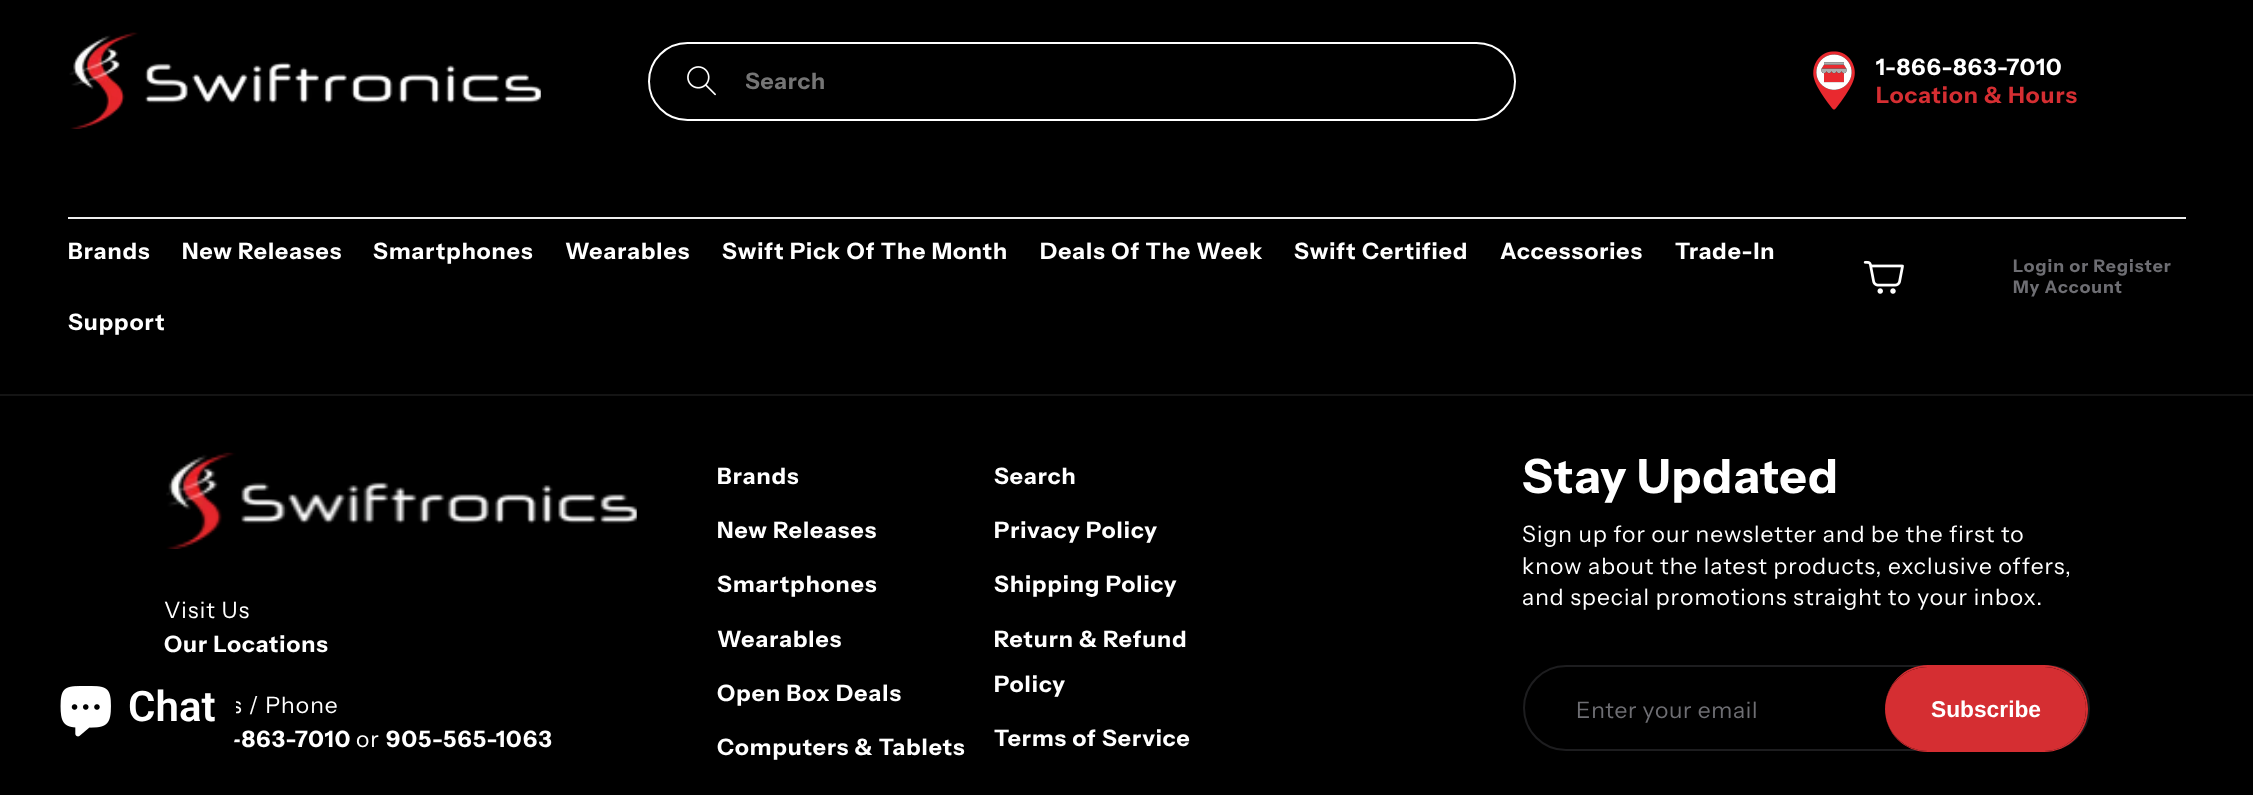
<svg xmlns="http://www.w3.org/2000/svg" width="2253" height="795">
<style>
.a{font:bold 22.75px Instrument Sans;letter-spacing:0.75px;fill:#757575}
.b{font:bold 22.75px Instrument Sans;letter-spacing:1.05px;fill:#fff}
.c{font:bold 22.75px Instrument Sans;letter-spacing:1.05px;fill:#d52e32}
.d{font:bold 17.5px Instrument Sans;letter-spacing:1.05px;fill:#6e6e73}
.e{font:22.75px Instrument Sans;letter-spacing:1.05px;fill:#fff}
.f{font:bold 47.25px Instrument Sans;letter-spacing:1.05px;fill:#fff}
.g{font:22.75px Instrument Sans;letter-spacing:0.75px;fill:#6e6e73}
.h{font:bold 22.75px Liberation Sans;fill:#fff}
.i{font:600 42px Roboto;fill:#fff}
</style>
<defs>
<clipPath id="clip1"><path d="M746 67h768v28H746z"/></clipPath>
</defs>
<rect width="100%" height="100%" fill="#000"/>
<path fill="#141414" d="M0 394h2253v2H0z"/>
<image href="1.png" x="69" y="32" width="472" height="97"/>
<rect fill="none" stroke="#fff" stroke-width="2" x="649" y="43" width="866" height="77" rx="38.5"/>
<image href="2.png" x="687" y="66" width="29" height="30"/>
<image href="3.png" x="1813" y="51" width="42" height="59"/>
<path fill="#eee" d="M68 217h2118v2H68z"/>
<image href="4.png" x="1863" y="260" width="41" height="34"/>
<image href="5.png" x="166" y="452" width="471" height="97"/>
<rect fill="none" stroke="#1d1d1f" stroke-width="2" x="1524" y="666" width="565" height="84" rx="42"/>
<path fill="#d52e32" d="M1928 667h116c23 0 42 19 42 42c0 23-19 42-42 42h-116c-24 0-43-19-43-42c0-23 19-42 43-42z"/>
<path fill="#d52e32" fill-rule="evenodd" d="M1928 665h116c24 0 44 20 44 44c0 24-20 43-44 43h-116c-24 0-43-19-43-43c0-24 19-44 43-44zm0 2h116c23 0 42 19 42 42c0 23-19 42-42 42h-116c-24 0-43-19-43-42c0-23 19-42 43-42z"/>
<rect fill="#00000026" filter="blur(4.5px)" x="39" y="655" width="197" height="105" rx="28"/>
<g clip-path="url(#clip1)">
<text class="a" x="745" y="89">Search</text>
</g>
<text class="b" x="1876" y="75">1-866-863-7010</text>
<text class="c" x="1876" y="103">Location &amp; Hours</text>
<text class="b" x="68" y="259">Brands</text>
<text class="b" x="182" y="259">New Releases</text>
<text class="b" x="373" y="259">Smartphones</text>
<text class="b" x="565" y="259">Wearables</text>
<text class="b" x="722" y="259">Swift Pick Of The Month</text>
<text class="b" x="1040" y="259">Deals Of The Week</text>
<text class="b" x="1294" y="259">Swift Certified</text>
<text class="b" x="1500" y="259">Accessories</text>
<text class="b" x="1675" y="259">Trade-In</text>
<text class="b" x="68" y="330">Support</text>
<text class="d" x="2013" y="272">Login or Register</text>
<text class="d" x="2013" y="293">My Account</text>
<text class="e" x="164" y="618">Visit Us</text>
<text class="b" x="164" y="652">Our Locations</text>
<text class="e" x="231" y="713">s / Phone</text>
<text class="b" x="230" y="747">-863-7010</text>
<text class="e" x="356" y="747">or</text>
<text class="b" x="386" y="747">905-565-1063</text>
<text class="b" x="717" y="484">Brands</text>
<text class="b" x="717" y="538">New Releases</text>
<text class="b" x="717" y="592">Smartphones</text>
<text class="b" x="717" y="647">Wearables</text>
<text class="b" x="717" y="701">Open Box Deals</text>
<text class="b" x="717" y="755">Computers &amp; Tablets</text>
<text class="b" x="994" y="484">Search</text>
<text class="b" x="994" y="538">Privacy Policy</text>
<text class="b" x="994" y="592">Shipping Policy</text>
<text class="b" x="994" y="647">Return &amp; Refund</text>
<text class="b" x="994" y="692">Policy</text>
<text class="b" x="994" y="746">Terms of Service</text>
<text class="f" x="1522" y="493">Stay Updated</text>
<text class="e" x="1522" y="542">Sign up for our newsletter and be the first to</text>
<text class="e" x="1522" y="574">know about the latest products, exclusive offers,</text>
<text class="e" x="1522" y="605">and special promotions straight to your inbox.</text>
<text class="g" x="1576" y="718">Enter your email</text>
<text class="h" x="1931" y="717">Subscribe</text>
<rect fill="#000" x="39" y="655" width="197" height="105" rx="28"/>
<image href="6.png" x="60" y="686" width="51" height="51"/>
<text class="i" x="128" y="721">Chat</text>
</svg>
